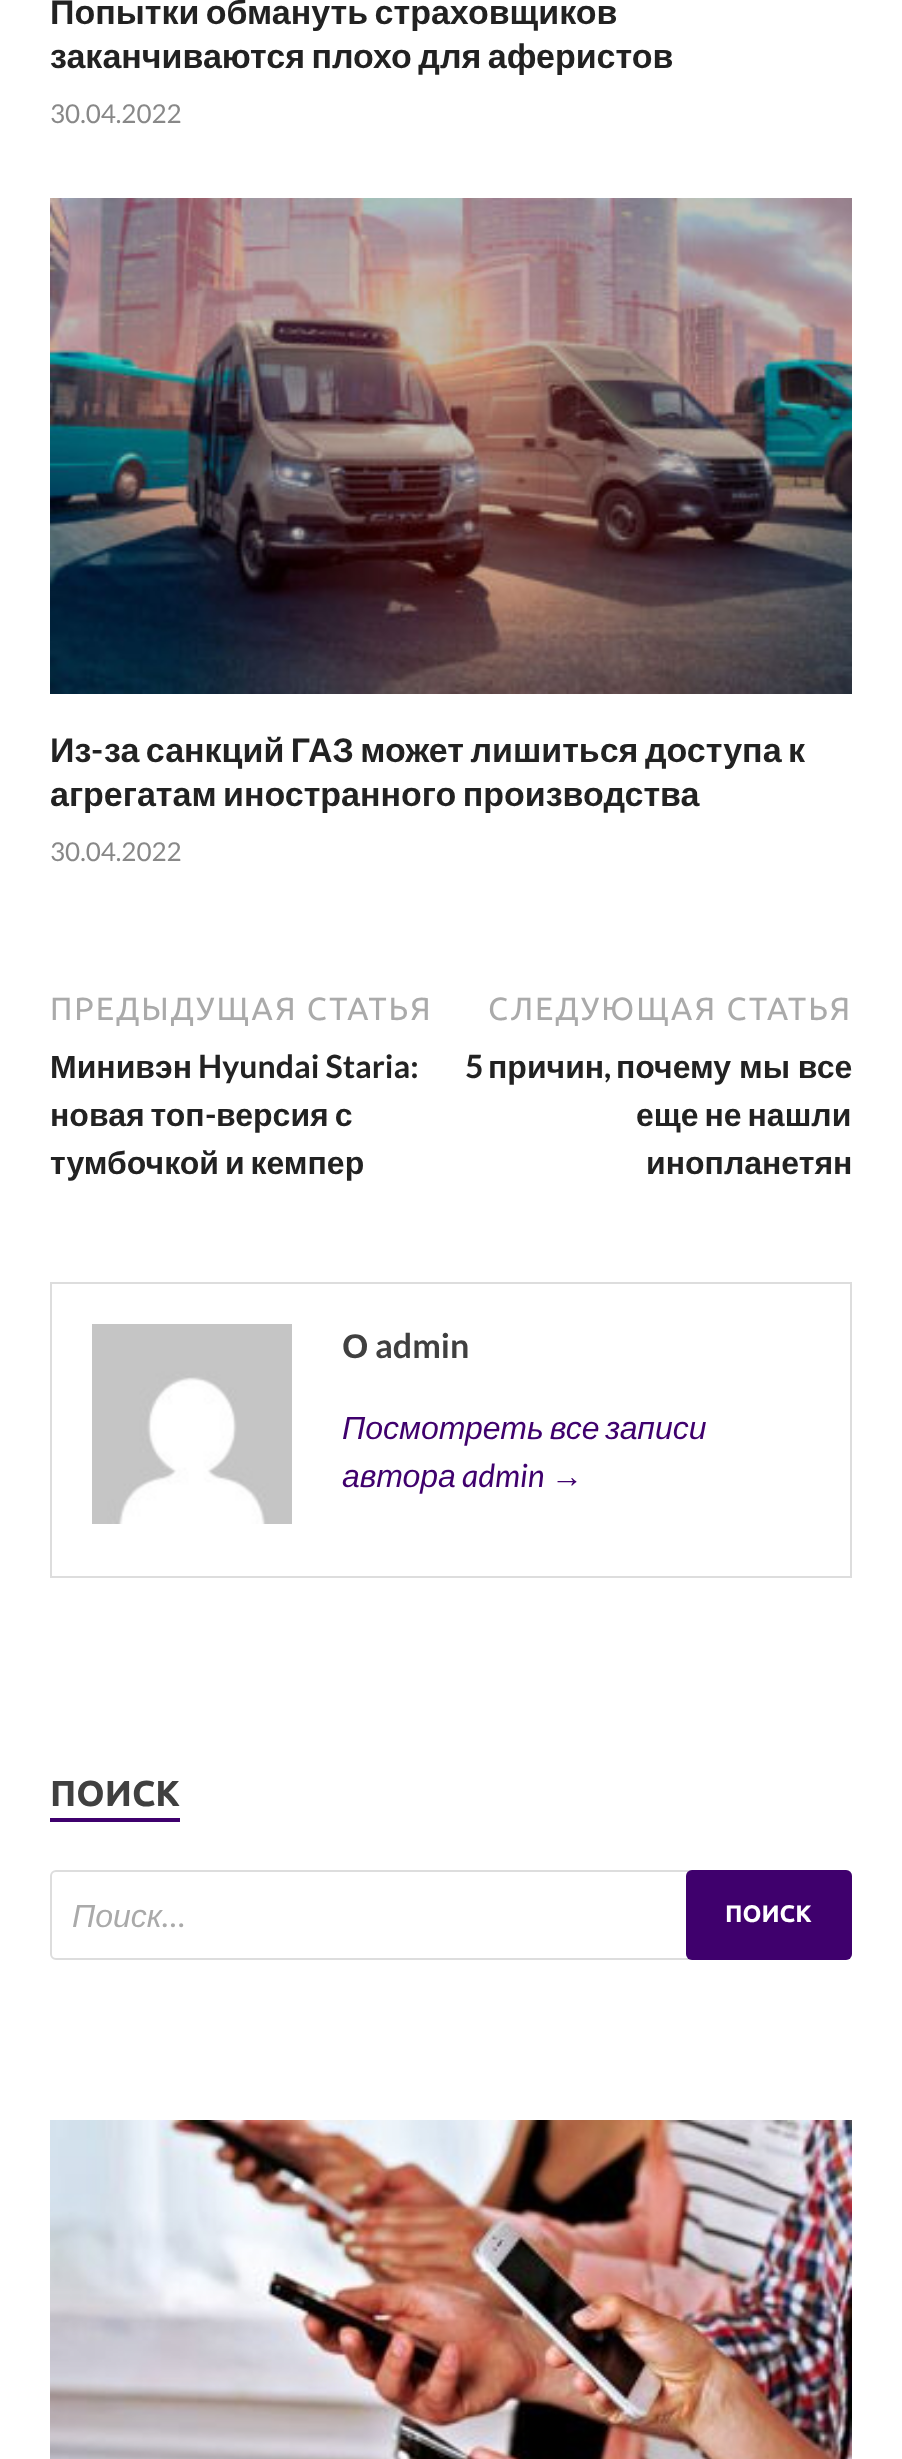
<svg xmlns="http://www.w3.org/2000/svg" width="902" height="2459">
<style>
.a{font:bold 34px Liberation Sans;fill:#222}
.b{font:26px Lato;fill:#888}
.c{font:bold 34px Lato;fill:#222}
.d{font:32px Ubuntu;letter-spacing:2px;fill:#aaa}
.e{font:bold 32px Liberation Sans;fill:#222}
.f{font:bold 32px Lato;fill:#222}
.g{font:bold 34px Liberation Sans;fill:#404040}
.h{font:bold 34px Lato;fill:#404040}
.i{font:italic 32px Liberation Sans;fill:#3f006d}
.j{font:italic 32px Lato;fill:#3f006d}
.k{font:bold 36px Ubuntu;fill:#404040}
.l{font:italic 32px Liberation Sans;fill:#aaa}
.m{font:italic 32px Lato;fill:#aaa}
.n{font:bold 24px Ubuntu;fill:#fff}
</style>
<rect width="100%" height="100%" fill="#fff"/>
<image href="1.png" x="50" y="198" width="802" height="496"/>
<path fill="none" stroke="#ddd" stroke-width="2" d="M51 1283h800v294H51z"/>
<image href="2.png" x="92" y="1324" width="200" height="200"/>
<path fill="#3f006d" d="M50 1818h130v4H50z"/>
<rect fill="none" stroke="#ddd" stroke-width="2" x="51" y="1871" width="800" height="88" rx="5"/>
<rect fill="#3f006d" x="686" y="1870" width="166" height="90" rx="6"/>
<image href="3.png" x="50" y="2120" width="802" height="339"/>
<text class="a" x="50" y="24" word-spacing="-3">Попытки обмануть страховщиков</text>
<text class="a" x="50" y="68" word-spacing="-3">заканчиваются плохо для аферистов</text>
<text class="b" x="50" y="123">30.04.2022</text>
<text class="a" x="50" y="762">Из</text>
<text class="c" x="91" y="762">-</text>
<text class="a" x="104" y="762" word-spacing="-3">за санкций ГАЗ может лишиться доступа к</text>
<text class="a" x="50" y="806" word-spacing="-3">агрегатам иностранного производства</text>
<text class="b" x="50" y="861">30.04.2022</text>
<text class="d" x="50" y="1020">ПРЕДЫДУЩАЯ СТАТЬЯ</text>
<text class="e" x="50" y="1078">Минивэн</text>
<text class="f" x="198" y="1078">Hyundai Staria:</text>
<text class="e" x="50" y="1126" word-spacing="-3">новая топ</text>
<text class="f" x="205" y="1126">-</text>
<text class="e" x="216" y="1126" word-spacing="-3">версия с</text>
<text class="e" x="50" y="1174" word-spacing="-3">тумбочкой и кемпер</text>
<text class="d" x="488" y="1020">СЛЕДУЮЩАЯ СТАТЬЯ</text>
<text class="f" x="465" y="1078">5</text>
<text class="e" x="488" y="1078">причин</text>
<text class="f" x="604" y="1078">,</text>
<text class="e" x="616" y="1078" word-spacing="-1">почему мы все</text>
<text class="e" x="636" y="1126" word-spacing="-3">еще не нашли</text>
<text class="e" x="646" y="1174">инопланетян</text>
<text class="g" x="342" y="1358">О</text>
<text class="h" x="375" y="1358">admin</text>
<text class="i" x="342" y="1439" word-spacing="-3">Посмотреть все записи</text>
<text class="i" x="342" y="1487">автора</text>
<text class="j" x="462" y="1487">admin</text>
<text class="i" x="551" y="1487">→</text>
<text class="k" x="50" y="1806">ПОИСК</text>
<text class="l" x="72" y="1927">Поиск</text>
<text class="m" x="162" y="1927">…</text>
<text class="n" x="725" y="1922">ПОИСК</text>
</svg>
